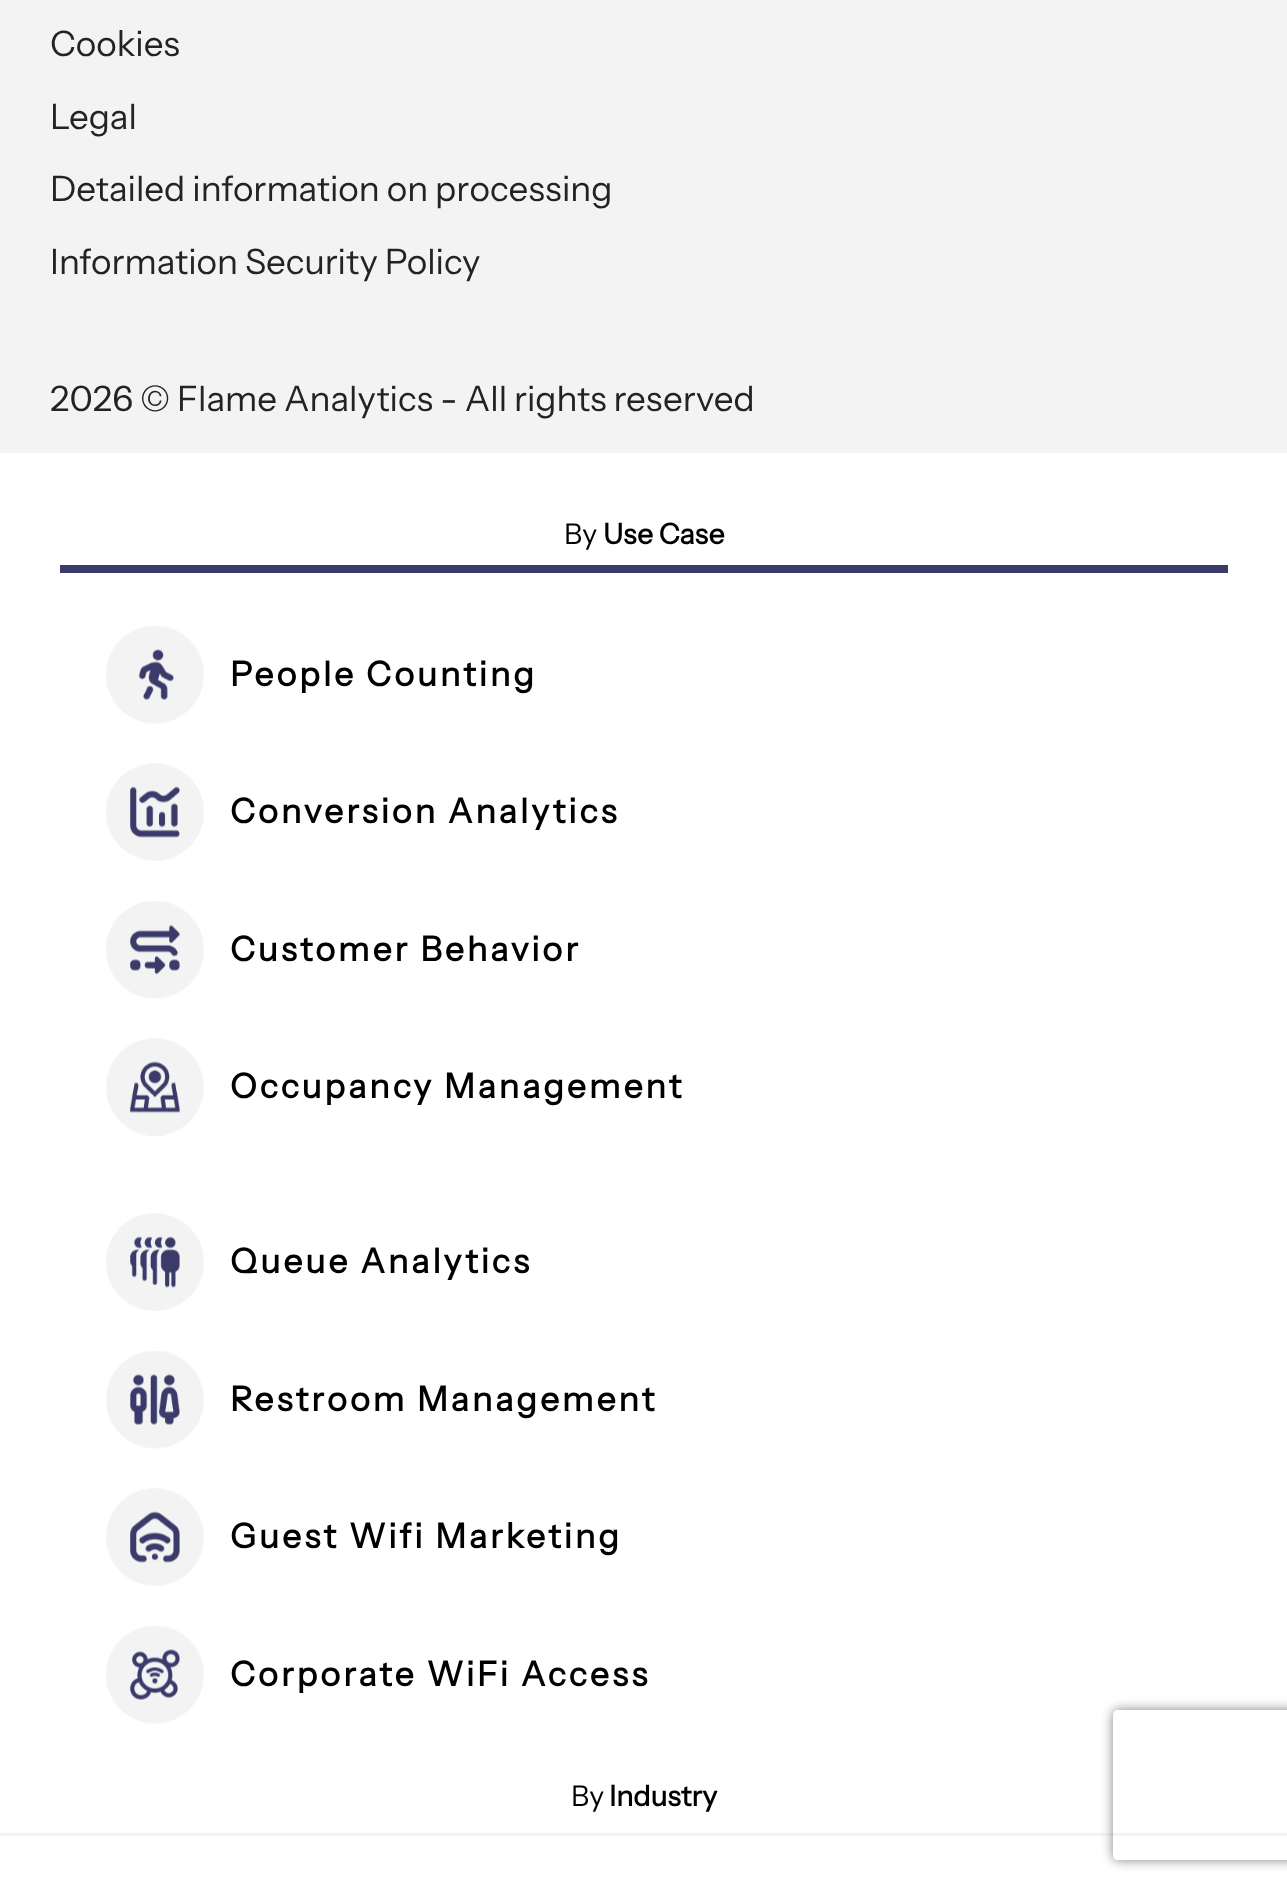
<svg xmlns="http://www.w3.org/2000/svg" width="1287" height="1893">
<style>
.a{font:35px Instrument Sans;fill:#232323}
.b{font:28.5px Instrument Sans;fill:#000}
.c{font:bold 28.5px Instrument Sans;fill:#000}
.d{font:bold 34px Instrument Sans;letter-spacing:3px;fill:#000}
</style>
<defs>
<clipPath id="clip1"><path d="M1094 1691h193v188h-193zm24 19h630c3 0 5 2 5 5v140c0 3-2 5-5 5h-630c-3 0-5-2-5-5v-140c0-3 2-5 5-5z" clip-rule="evenodd"/></clipPath>
</defs>
<rect width="100%" height="100%" fill="#fff"/>
<path fill="#f3f3f3" d="M0 0h1287v453H0z"/>
<path fill="#3a3b6a" d="M60 565h1168v8H60z"/>
<path fill="#f3f3f3" d="M0 1833h1287v3H0z"/>
<image href="1.png" x="106" y="626" width="98" height="98"/>
<image href="2.png" x="106" y="763" width="98" height="98"/>
<image href="3.png" x="106" y="901" width="98" height="98"/>
<image href="4.png" x="106" y="1038" width="98" height="98"/>
<image href="5.png" x="106" y="1213" width="98" height="98"/>
<image href="6.png" x="106" y="1351" width="98" height="98"/>
<image href="7.png" x="106" y="1488" width="98" height="98"/>
<image href="8.png" x="106" y="1626" width="98" height="98"/>
<g clip-path="url(#clip1)">
<rect fill="#808080" filter="blur(6px)" x="1113" y="1710" width="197" height="150" rx="5"/>
</g>
<text class="a" x="50" y="56">Cookies</text>
<text class="a" x="50" y="129">Legal</text>
<text class="a" x="50" y="201">Detailed information on processing</text>
<text class="a" x="50" y="274">Information Security Policy</text>
<text class="a" x="50" y="411">2026 © Flame Analytics - All rights reserved</text>
<text class="b" x="564" y="544">By</text>
<text class="c" x="603" y="544">Use Case</text>
<text class="b" x="571" y="1806">By</text>
<text class="c" x="609" y="1806">Industry</text>
<text class="d" x="230" y="686">People Counting</text>
<text class="d" x="230" y="823">Conversion Analytics</text>
<text class="d" x="230" y="961">Customer Behavior</text>
<text class="d" x="230" y="1098">Occupancy Management</text>
<text class="d" x="230" y="1273">Queue Analytics</text>
<text class="d" x="230" y="1411">Restroom Management</text>
<text class="d" x="230" y="1548">Guest Wifi Marketing</text>
<text class="d" x="230" y="1686">Corporate WiFi Access</text>
</svg>
